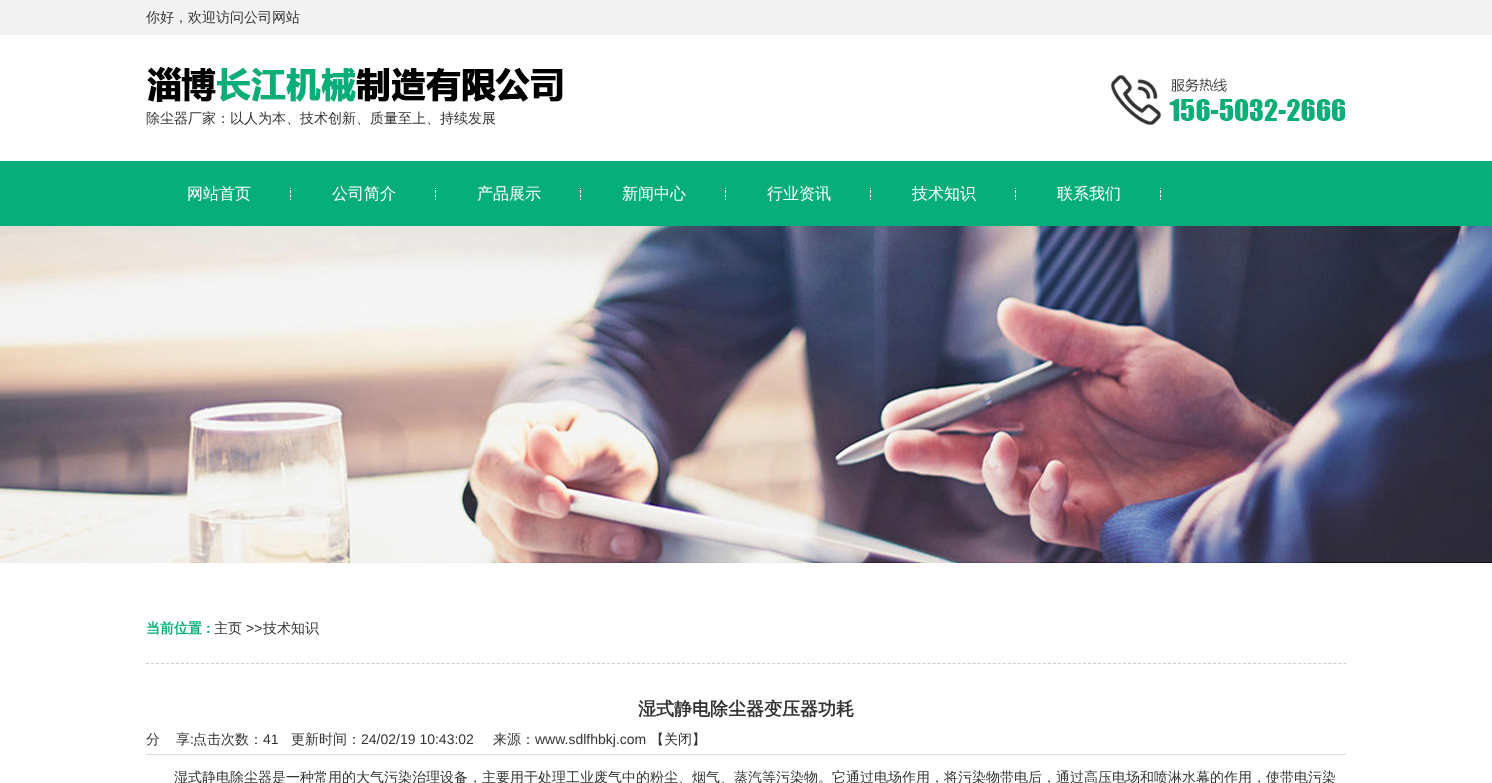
<svg xmlns="http://www.w3.org/2000/svg" width="1492" height="783">
<style>
.a{font:500 14px WenQuanYi Zen Hei;fill:#333}
.b{font:500 16px WenQuanYi Zen Hei;fill:#fff}
.c{font:bold 14px WenQuanYi Zen Hei;fill:#08ae79}
.d{font:bold 14px Liberation Sans;fill:#08ae79}
.e{font:14px Liberation Sans;fill:#333}
.f{font:bold 18px WenQuanYi Zen Hei;fill:#333}
</style>
<rect width="100%" height="100%" fill="#fff"/>
<path fill="#f2f2f2" d="M0 0h1492v35H0z"/>
<image href="1.png" x="147" y="66" width="416" height="36"/>
<image href="2.png" x="1111" y="75" width="234" height="50"/>
<path fill="#08ae79" d="M0 161h1492v65H0z"/>
<image href="3.png" x="290" y="188" width="1" height="12"/>
<image href="3.png" x="435" y="188" width="1" height="12"/>
<image href="3.png" x="580" y="188" width="1" height="12"/>
<image href="3.png" x="725" y="188" width="1" height="12"/>
<image href="3.png" x="870" y="188" width="1" height="12"/>
<image href="3.png" x="1015" y="188" width="1" height="12"/>
<image href="3.png" x="1160" y="188" width="1" height="12"/>
<image href="4.png" x="0" y="226" width="1492" height="337"/>
<path fill="none" stroke="#ccc" stroke-dasharray="3 2.01" d="M146 663.5h1200"/>
<path fill="#ddd" d="M146 754h1200v1H146z"/>
<text class="a" x="146" y="22">你好，欢迎访问公司网站</text>
<text class="a" x="146" y="123">除尘器厂家：以人为本、技术创新、质量至上、持续发展</text>
<text class="b" x="187" y="199">网站首页</text>
<text class="b" x="332" y="199">公司简介</text>
<text class="b" x="477" y="199">产品展示</text>
<text class="b" x="622" y="199">新闻中心</text>
<text class="b" x="767" y="199">行业资讯</text>
<text class="b" x="912" y="199">技术知识</text>
<text class="b" x="1057" y="199">联系我们</text>
<text class="c" x="146" y="633">当前位置</text>
<text class="d" x="206" y="633">:</text>
<text class="a" x="214" y="633">主页</text>
<text class="e" x="246" y="633">&gt;&gt;</text>
<text class="a" x="263" y="633">技术知识</text>
<text class="f" x="638" y="715">湿式静电除尘器变压器功耗</text>
<text class="a" x="146" y="744">分</text>
<text class="a" x="176" y="744">享</text>
<text class="e" x="190" y="744">:</text>
<text class="a" x="193" y="744">点击次数：</text>
<text class="e" x="263" y="744">41</text>
<text class="a" x="291" y="744">更新时间：</text>
<text class="e" x="361" y="744">24/02/19 10:43:02</text>
<text class="a" x="493" y="744">来源：</text>
<text class="e" x="535" y="744">www.sdlfhbkj.com</text>
<text class="a" x="650" y="744">【关闭】</text>
<text class="a" x="174" y="782">湿式静电除尘器是一种常用的大气污染治理设备，主要用于处理工业废气中的粉尘、烟气、蒸汽等污染物。它通过电场作用，将污染物带电后，通过高压电场和喷淋水幕的作用，使带电污染</text>
</svg>
